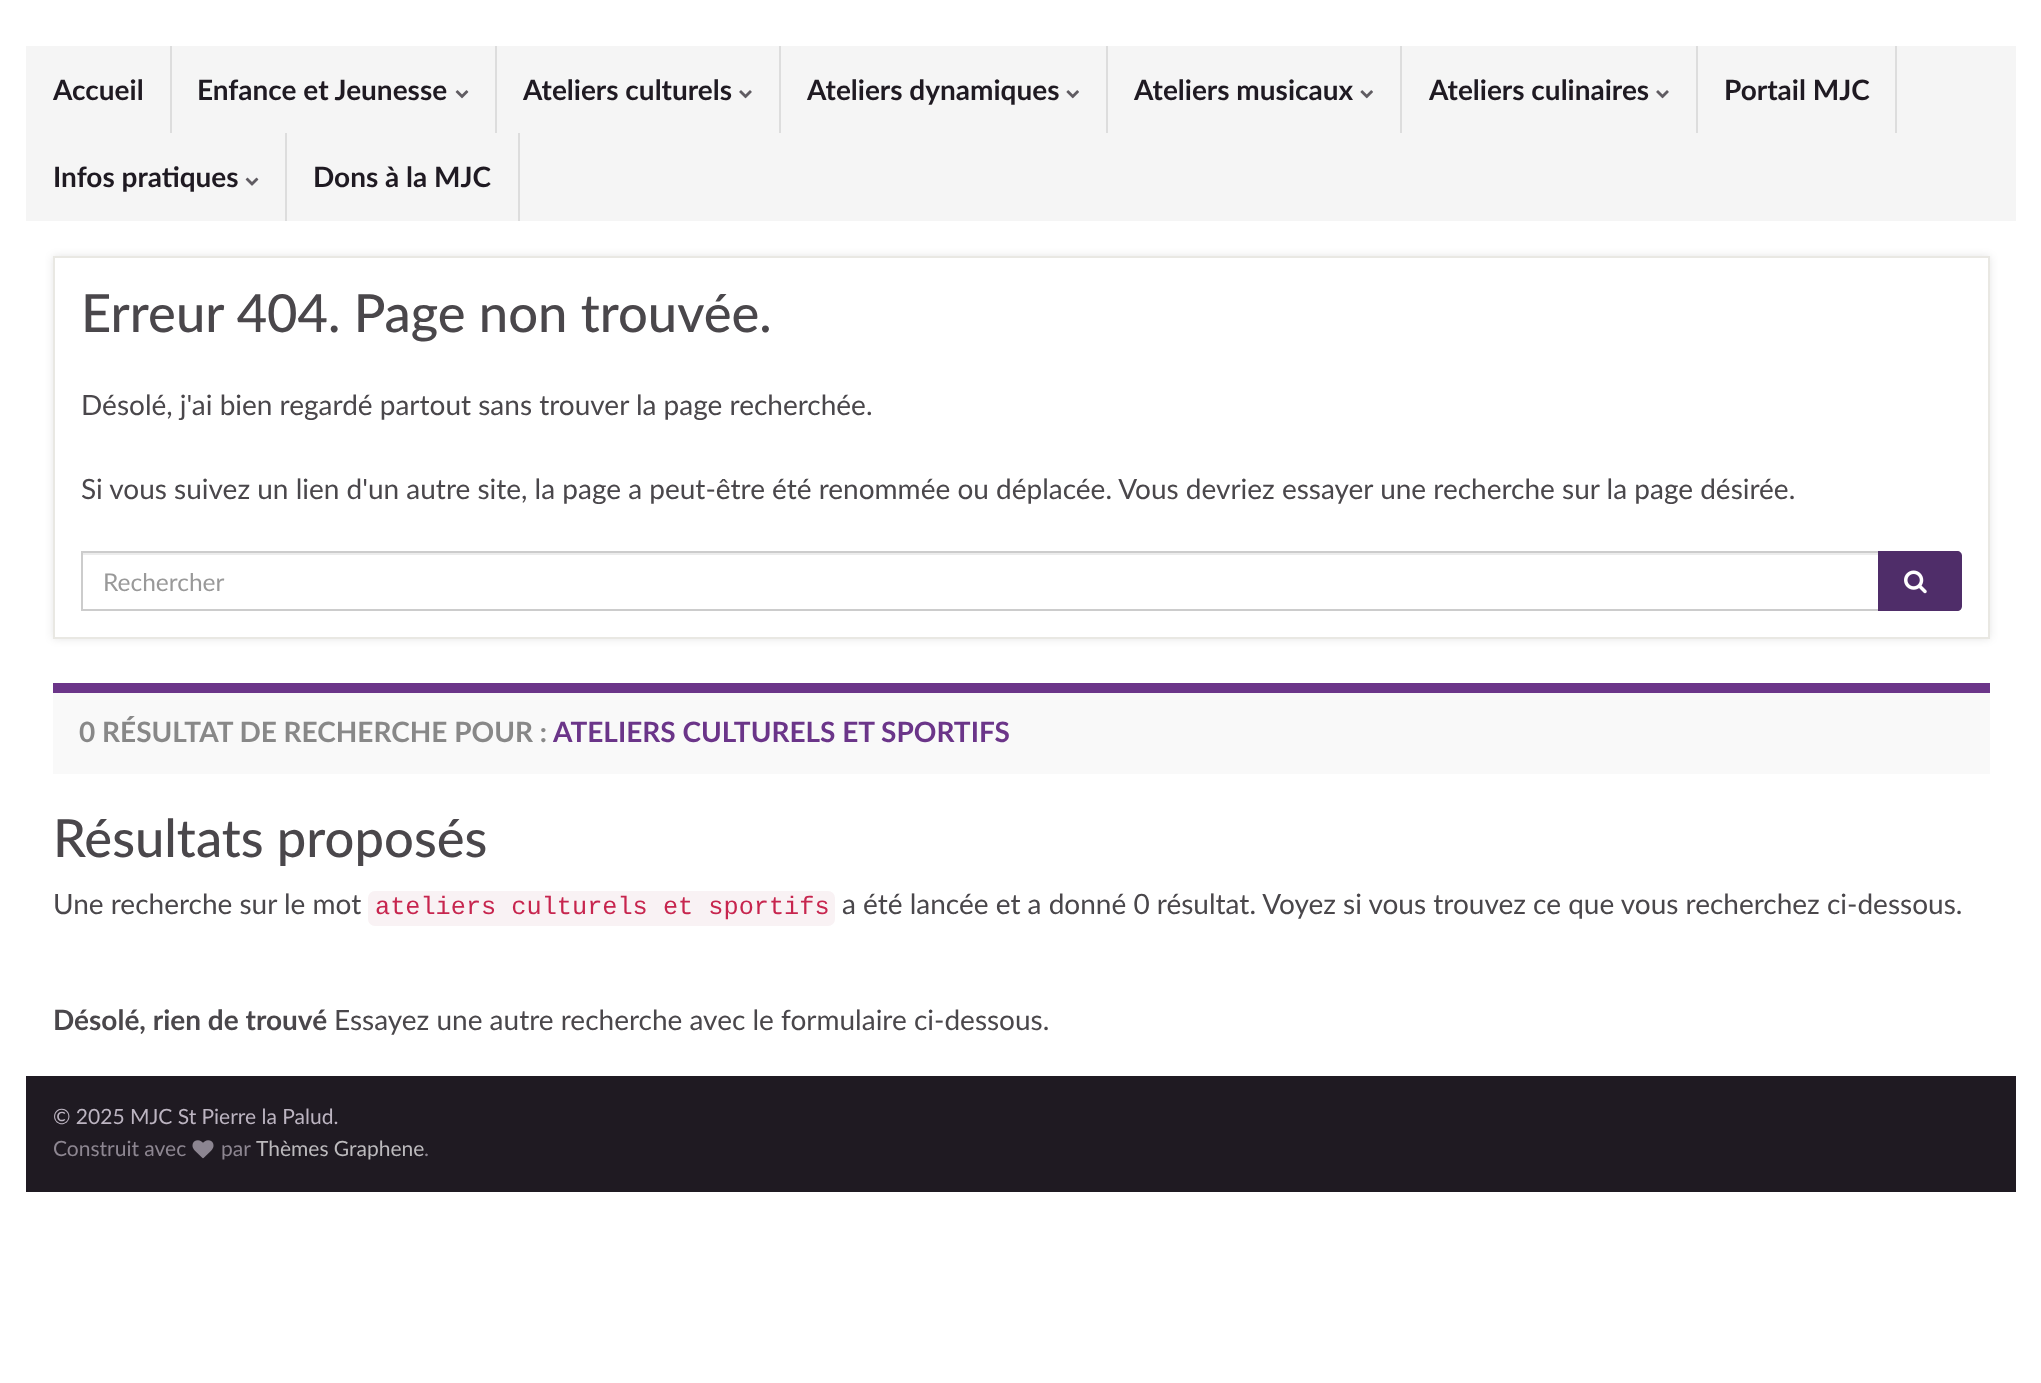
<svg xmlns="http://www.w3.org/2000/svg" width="2041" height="1383">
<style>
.a{font:bold 28px Lato;fill:#1f1a22}
.b{font:500 52.5px Lato;fill:#4a474b}
.c{font:28px Lato;fill:#4a474b}
.d{font:24.5px Lato;fill:#999}
.e{font:bold 28px Lato;fill:#888}
.f{font:bold 28px Lato;fill:#6b3589}
.g{font:25.25px Liberation Mono;fill:#c7254e}
.h{font:bold 28px Lato;fill:#4a474b}
.i{font:21px Lato;fill:#bcb4c1}
.j{font:21px Lato;fill:#8d8691}
.k{font:21px Lato;fill:#bcbabd}
</style>
<rect width="100%" height="100%" fill="#fff"/>
<path fill="#f5f5f5" d="M26 46h1990v175H26z"/>
<path fill="#ddd" d="M170 46h2v87H170z"/>
<path fill="#ddd" d="M495 46h2v87H495z"/>
<image href="1.png" x="455" y="90" width="14" height="9"/>
<path fill="#ddd" d="M779 46h2v87H779z"/>
<image href="2.png" x="739" y="90" width="13" height="9"/>
<path fill="#ddd" d="M1106 46h2v87H1106z"/>
<image href="3.png" x="1066" y="90" width="13" height="9"/>
<path fill="#ddd" d="M1400 46h2v87H1400z"/>
<image href="3.png" x="1360" y="90" width="13" height="9"/>
<path fill="#ddd" d="M1696 46h2v87H1696z"/>
<image href="2.png" x="1656" y="90" width="13" height="9"/>
<path fill="#ddd" d="M1895 46h2v87H1895z"/>
<path fill="#ddd" d="M285 133h2v88H285z"/>
<image href="4.png" x="245" y="177" width="14" height="9"/>
<path fill="#ddd" d="M518 133h2v88H518z"/>
<path fill="#0000001a" filter="blur(4.5px)" d="M53 256h1937v383H53z"/>
<path fill="#fff" stroke="#e9e8e3" stroke-width="2" d="M54 257h1935v381H54z"/>
<path fill="#ececec" d="M82 553h1796v2H82z"/>
<path fill="none" stroke="#ccc" stroke-width="2" d="M82 552h1797v58H82z"/>
<path fill="#4f2d69" d="M1878 551h79c3 0 5 2 5 5v50c0 3-2 5-5 5h-79z"/>
<image href="5.png" x="1904" y="570" width="23" height="24"/>
<path fill="#f9f9f9" d="M53 693h1937v81H53z"/>
<path fill="#6b3589" d="M53 683h1937v10H53z"/>
<rect fill="#f9f2f4" x="368" y="891" width="467" height="35" rx="7"/>
<path fill="#1f1a22" d="M26 1076h1990v116H26z"/>
<image href="6.png" x="192" y="1140" width="22" height="19"/>
<text class="a" x="53" y="100">Accueil</text>
<text class="a" x="197" y="100">Enfance et Jeunesse</text>
<text class="a" x="523" y="100">Ateliers culturels</text>
<text class="a" x="807" y="100">Ateliers dynamiques</text>
<text class="a" x="1134" y="100">Ateliers musicaux</text>
<text class="a" x="1429" y="100">Ateliers culinaires</text>
<text class="a" x="1724" y="100">Portail MJC</text>
<text class="a" x="53" y="187">Infos pratiques</text>
<text class="a" x="313" y="187">Dons à la MJC</text>
<text class="b" x="81" y="332">Erreur 404. Page non trouvée.</text>
<text class="c" x="81" y="415">Désolé, j'ai bien regardé partout sans trouver la page recherchée.</text>
<text class="c" x="81" y="499">Si vous suivez un lien d'un autre site, la page a peut-être été renommée ou déplacée. Vous devriez essayer une recherche sur la page désirée.</text>
<text class="d" x="103" y="591">Rechercher</text>
<text class="e" x="79" y="742">0 RÉSULTAT DE RECHERCHE POUR :</text>
<text class="f" x="553" y="742">ATELIERS CULTURELS ET SPORTIFS</text>
<text class="b" x="53" y="857">Résultats proposés</text>
<text class="c" x="53" y="914">Une recherche sur le mot</text>
<text class="g" x="375" y="914">ateliers culturels et sportifs</text>
<text class="c" x="842" y="914">a été lancée et a donné 0 résultat. Voyez si vous trouvez ce que vous recherchez ci-dessous.</text>
<text class="h" x="53" y="1030">Désolé, rien de trouvé</text>
<text class="c" x="334" y="1030">Essayez une autre recherche avec le formulaire ci-dessous.</text>
<text class="i" x="53" y="1124">© 2025 MJC St Pierre la Palud.</text>
<text class="j" x="53" y="1156">Construit avec</text>
<text class="j" x="221" y="1156">par</text>
<text class="k" x="256" y="1156">Thèmes Graphene</text>
<text class="j" x="424" y="1156">.</text>
</svg>
